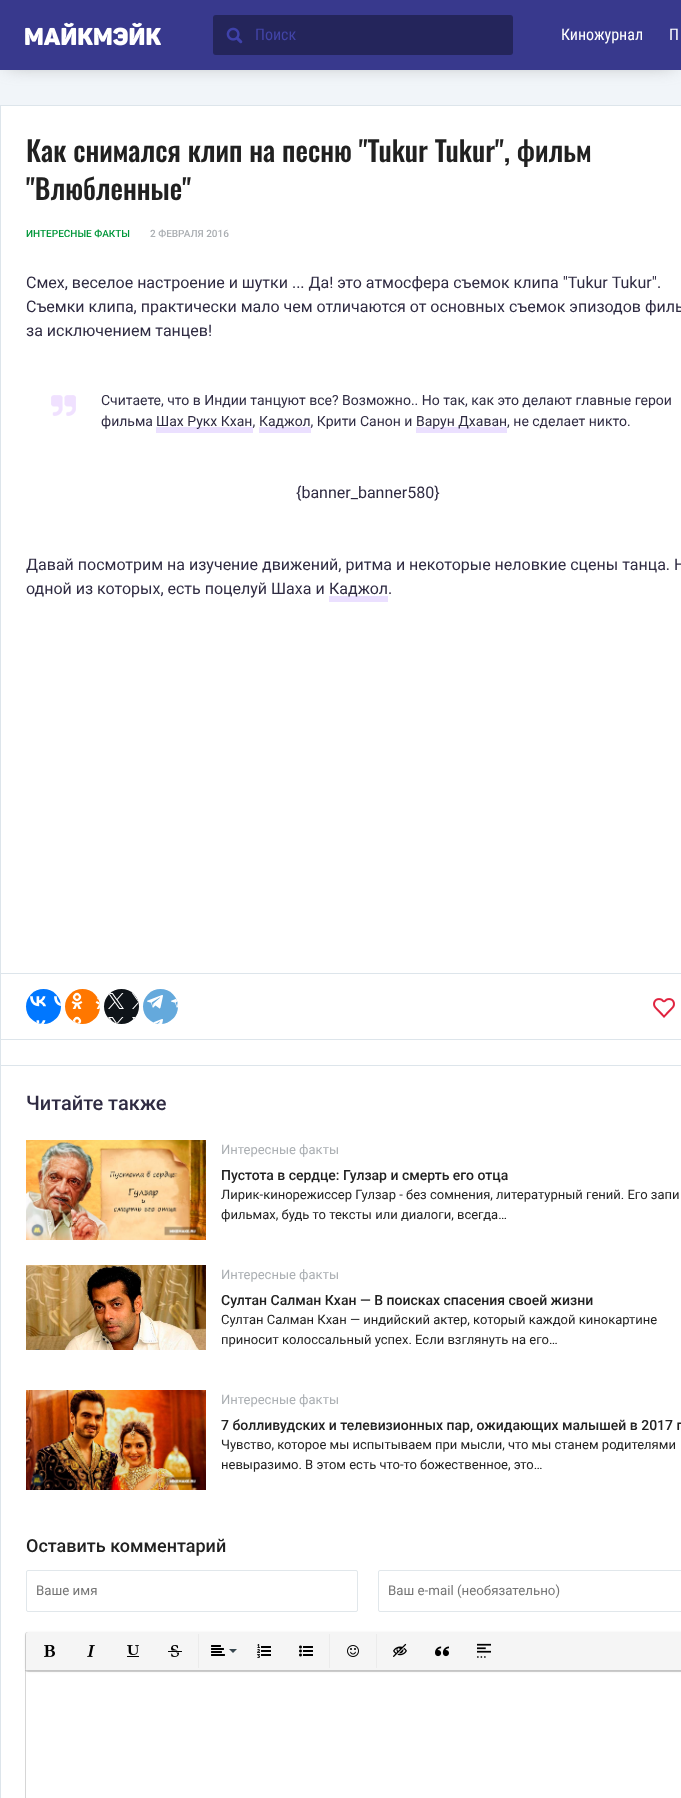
<svg xmlns="http://www.w3.org/2000/svg" width="681" height="1798">
<style>
.a{font:16px Roboto Condensed;fill:#4244a7}
.b{font:16px Roboto Condensed;fill:#fff}
.c{font:500 28px Oswald;fill:#212121}
.d{font:500 10px Roboto;fill:#00973a}
.e{font:500 10px Roboto;fill:#abafb3}
.f{font:16px Roboto;fill:#2f2b42}
.g{font:14px Roboto;fill:#2f2b42}
.h{font:500 20px Roboto;fill:#2f2b42}
.i{font:13px Roboto;fill:#abafb3}
.j{font:500 14px Roboto;fill:#212121}
.k{font:13px Roboto;fill:#212121}
.l{font:500 18px Roboto;fill:#212121}
.m{font:13.3px Roboto;fill:#757575}
</style>
<defs>
<clipPath id="clip1"><path d="M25 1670h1v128H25z"/></clipPath>
</defs>
<rect width="100%" height="100%" fill="#f1f5f9"/>
<path fill="#8b8b8b" filter="blur(10px)" d="M8 8h665v54H8z"/>
<path fill="#38398d" d="M0 0h681v70H0z"/>
<image href="1.png" x="25" y="22" width="136" height="24"/>
<rect fill="#24255b" x="213" y="15" width="300" height="40" rx="3"/>
<image href="2.png" x="226" y="27" width="17" height="17"/>
<path fill="#fff" d="M1 106h680v1692H1z"/>
<path fill="#dde5eb" d="M0 105h681v1H0z"/>
<path fill="#dde5eb" d="M0 105h1v1693H0z"/>
<image href="3.png" x="51" y="395" width="25" height="21"/>
<path fill="#ebe0ff" d="M156 427h97v6H156z"/>
<path fill="#ebe0ff" d="M259 427h52v6H259z"/>
<path fill="#ebe0ff" d="M416 427h91v6H416z"/>
<path fill="#ebe0ff" d="M329 596h59v6H329z"/>
<path fill="#dde5eb" d="M1 973h680v1H1z"/>
<path fill="#dde5eb" d="M1 1039h680v1H1z"/>
<circle fill="#07f" cx="43.5" cy="1006.5" r="17.5"/>
<image href="4.png" x="30" y="996" width="31" height="28"/>
<circle fill="#f70" cx="82.5" cy="1006.5" r="17.5"/>
<image href="5.png" x="71" y="992" width="29" height="32"/>
<circle fill="#0f1419" cx="121.5" cy="1006.5" r="17.5"/>
<image href="6.png" x="108" y="993" width="31" height="31"/>
<circle fill="#64a9dc" cx="160.5" cy="1006.5" r="17.5"/>
<image href="7.png" x="147" y="995" width="31" height="29"/>
<image href="8.png" x="653" y="998" width="22" height="20"/>
<path fill="#dde5eb" d="M1 1065h680v1H1z"/>
<image href="9.png" x="26" y="1140" width="180" height="100"/>
<image href="10.png" x="26" y="1265" width="180" height="85"/>
<image href="11.png" x="26" y="1390" width="180" height="100"/>
<rect fill="none" stroke="#e1e7eb" x="26.5" y="1570.5" width="331" height="41" rx="1.5"/>
<rect fill="none" stroke="#e1e7eb" x="378.5" y="1570.5" width="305" height="41" rx="1.5"/>
<rect fill="#00000029" filter="blur(0.5px)" x="25" y="1632" width="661" height="40" rx="3"/>
<rect fill="#0000001f" filter="blur(1.5px)" x="26" y="1633" width="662" height="38" rx="2"/>
<g clip-path="url(#clip1)">
<path fill="#00000029" filter="blur(0.5px)" d="M25 1670h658v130H25z"/>
</g>
<path fill="#f5f5f5" d="M28 1632h653c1 0 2 1 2 2v36h-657v-36c0-1 1-2 2-2z"/>
<image href="12.png" x="44" y="1645" width="11" height="12"/>
<image href="13.png" x="87" y="1645" width="8" height="12"/>
<image href="14.png" x="127" y="1645" width="12" height="12"/>
<image href="15.png" x="168" y="1645" width="14" height="12"/>
<path fill="#ebebeb" d="M198 1634h1v34H198z"/>
<image href="16.png" x="211" y="1645" width="14" height="11"/>
<path fill="#37474f" d="M229 1649h8l-4 4z"/>
<image href="17.png" x="257" y="1644" width="14" height="14"/>
<image href="18.png" x="299" y="1645" width="14" height="12"/>
<path fill="#ebebeb" d="M329 1634h1v34H329z"/>
<image href="19.png" x="347" y="1645" width="12" height="12"/>
<path fill="#ebebeb" d="M376 1634h1v34H376z"/>
<image href="20.png" x="393" y="1643" width="14" height="14"/>
<image href="21.png" x="435" y="1646" width="14" height="11"/>
<image href="22.png" x="477" y="1643" width="14" height="15"/>
<text class="a" x="255" y="40">Поиск</text>
<text class="b" x="561" y="40">Киножурнал</text>
<text class="b" x="669" y="40">П</text>
<text class="c" x="26" y="162">Как снимался клип на песню "Tukur Tukur", фильм</text>
<text class="c" x="26" y="200">"Влюбленные"</text>
<text class="d" x="26" y="237">ИНТЕРЕСНЫЕ ФАКТЫ</text>
<text class="e" x="150" y="237">2 ФЕВРАЛЯ 2016</text>
<text class="f" x="26" y="288">Смех, веселое настроение и шутки ... Да! это атмосфера съемок клипа "Tukur Tukur".</text>
<text class="f" x="26" y="312">Съемки клипа, практически мало чем отличаются от основных съемок эпизодов филь</text>
<text class="f" x="26" y="336">за исключением танцев!</text>
<text class="g" x="101" y="405">Считаете, что в Индии танцуют все? Возможно.. Но так, как это делают главные герои</text>
<text class="g" x="101" y="426">фильма</text>
<text class="g" x="156" y="426">Шах Рукх Кхан,</text>
<text class="g" x="259" y="426">Каджол, Крити Санон и</text>
<text class="g" x="416" y="426">Варун Дхаван, не сделает никто.</text>
<text class="f" x="296" y="498">{banner_banner580}</text>
<text class="f" x="26" y="570">Давай посмотрим на изучение движений, ритма и некоторые неловкие сцены танца. Н</text>
<text class="f" x="26" y="594">одной из которых, есть поцелуй Шаха и</text>
<text class="f" x="329" y="594">Каджол.</text>
<text class="h" x="26" y="1110">Читайте также</text>
<text class="i" x="221" y="1154">Интересные факты</text>
<text class="j" x="221" y="1180">Пустота в сердце: Гулзар и смерть его отца</text>
<text class="k" x="221" y="1199">Лирик-кинорежиссер Гулзар - без сомнения, литературный гений. Его запи</text>
<text class="k" x="221" y="1219">фильмах, будь то тексты или диалоги, всегда…</text>
<text class="i" x="221" y="1279">Интересные факты</text>
<text class="j" x="221" y="1305">Султан Салман Кхан — В поисках спасения своей жизни</text>
<text class="k" x="221" y="1324">Султан Салман Кхан — индийский актер, который каждой кинокартине</text>
<text class="k" x="221" y="1344">приносит колоссальный успех. Если взглянуть на его…</text>
<text class="i" x="221" y="1404">Интересные факты</text>
<text class="j" x="221" y="1430">7 болливудских и телевизионных пар, ожидающих малышей в 2017 г</text>
<text class="k" x="221" y="1449">Чувство, которое мы испытываем при мысли, что мы станем родителями</text>
<text class="k" x="221" y="1469">невыразимо. В этом есть что-то божественное, это…</text>
<text class="l" x="26" y="1552">Оставить комментарий</text>
<text class="m" x="36" y="1595">Ваше имя</text>
<text class="m" x="388" y="1595">Ваш e-mail (необязательно)</text>
</svg>
